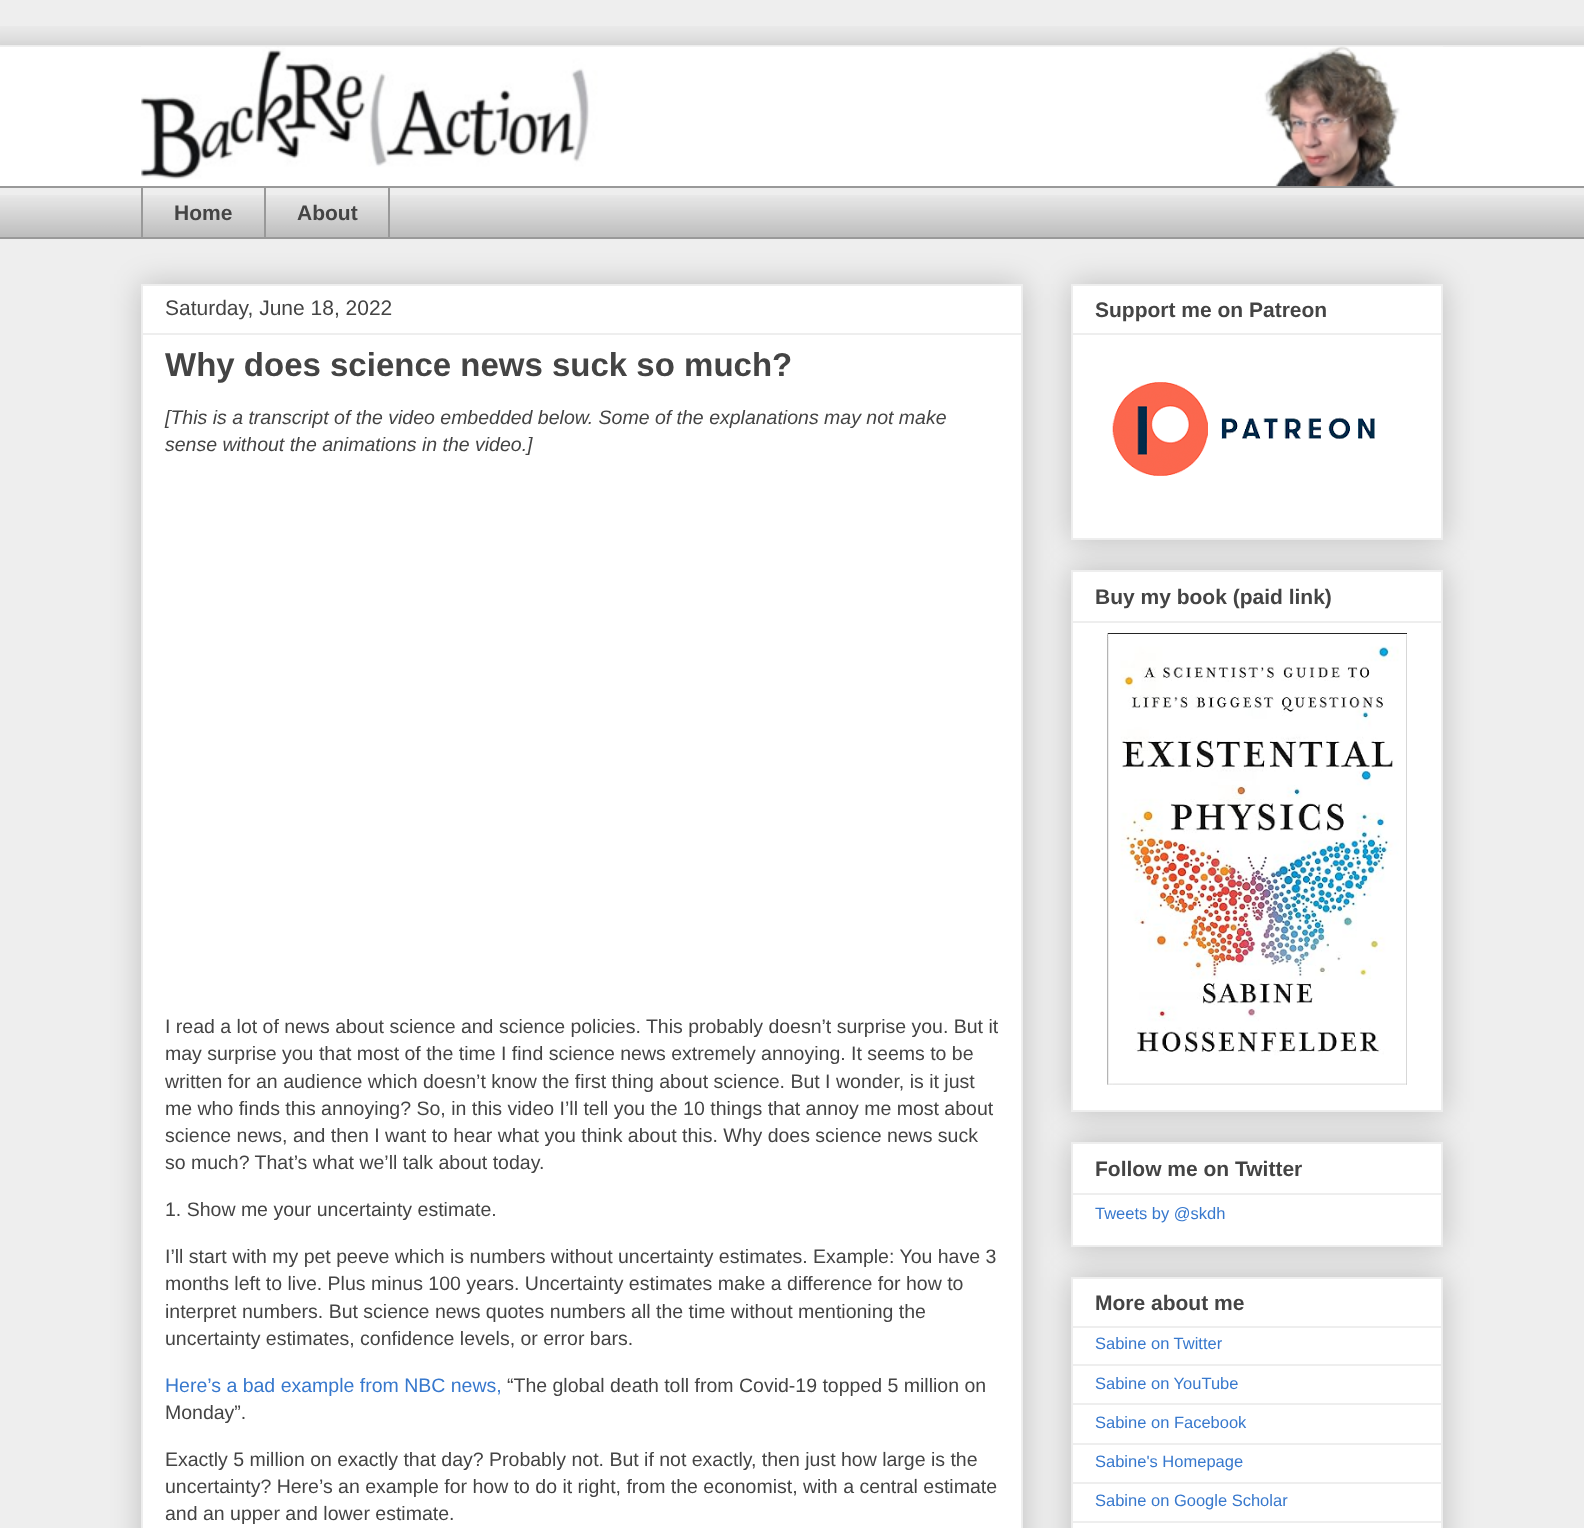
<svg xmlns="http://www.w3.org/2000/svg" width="1584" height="1528">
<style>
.a{font:bold 21px Liberation Sans;fill:#444}
.b{font:21px Liberation Sans;fill:#444}
.c{font:bold 33px Liberation Sans;fill:#444}
.d{font:italic 19.5px Liberation Sans;fill:#444}
.e{font:19.5px Liberation Sans;fill:#444}
.f{font:19.5px Liberation Sans;fill:#3778cd}
.g{font:16.5px Liberation Sans;fill:#3778cd}
</style>
<defs>
<clipPath id="clip1"><path d="M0 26h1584v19H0z"/></clipPath>
</defs>
<rect width="100%" height="100%" fill="#eee"/>
<path fill="#fff" d="M0 47h1584v139H0z"/>
<g clip-path="url(#clip1)">
<path fill="#00000033" filter="blur(15px)" d="M-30 45h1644v141H-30z"/>
</g>
<image href="1.png" x="141" y="46" width="1302" height="140"/>
<path fill="#eee" d="M0 188h1584v22H0z"/>
<image href="2.png" x="0" y="195" width="1584" height="42"/>
<path fill="#999" d="M0 186h1584v2H0z"/>
<path fill="#999" d="M141 186h2v53H141z"/>
<path fill="none" stroke="#999" stroke-width="2" d="M265 187h124v51H265z"/>
<path fill="#999" d="M0 237h1584v2H0z"/>
<path fill="#00000033" filter="blur(15px)" d="M141 284h882v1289H141z"/>
<path fill="#fff" stroke="#eee" stroke-width="2" d="M142 285h880v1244H142z"/>
<path fill="#eee" d="M143 333h879v2H143z"/>
<path fill="#00000033" filter="blur(15px)" d="M1071 284h372v256H1071z"/>
<path fill="#fff" stroke="#eee" stroke-width="2" d="M1072 285h370v254H1072z"/>
<path fill="#eee" d="M1073 333h369v2H1073z"/>
<image href="3.png" x="1112" y="382" width="263" height="94"/>
<path fill="#00000033" filter="blur(15px)" d="M1071 570h372v542H1071z"/>
<path fill="#fff" stroke="#eee" stroke-width="2" d="M1072 571h370v540H1072z"/>
<path fill="#eee" d="M1073 621h369v2H1073z"/>
<image href="4.png" x="1107" y="633" width="300" height="452"/>
<path fill="#00000033" filter="blur(15px)" d="M1071 1142h372v105H1071z"/>
<path fill="#fff" stroke="#eee" stroke-width="2" d="M1072 1143h370v103H1072z"/>
<path fill="#eee" d="M1073 1193h369v2H1073z"/>
<path fill="#00000033" filter="blur(15px)" d="M1071 1277h372v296H1071z"/>
<path fill="#fff" stroke="#eee" stroke-width="2" d="M1072 1278h370v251H1072z"/>
<path fill="#eee" d="M1073 1326h369v2H1073z"/>
<path fill="#eee" d="M1073 1364h369v2H1073z"/>
<path fill="#eee" d="M1073 1403h369v2H1073z"/>
<path fill="#eee" d="M1073 1443h369v2H1073z"/>
<path fill="#eee" d="M1073 1482h369v2H1073z"/>
<path fill="#eee" d="M1073 1521h369v2H1073z"/>
<text class="a" x="174" y="220">Home</text>
<text class="a" x="297" y="220">About</text>
<text class="b" x="165" y="315">Saturday, June 18, 2022</text>
<text class="c" x="165" y="376">Why does science news suck so much?</text>
<text class="d" x="165" y="424">[This is a transcript of the video embedded below. Some of the explanations may not make</text>
<text class="d" x="165" y="451">sense without the animations in the video.]</text>
<text class="e" x="165" y="1033">I read a lot of news about science and science policies. This probably doesn’t surprise you. But it</text>
<text class="e" x="165" y="1060">may surprise you that most of the time I find science news extremely annoying. It seems to be</text>
<text class="e" x="165" y="1088">written for an audience which doesn’t know the first thing about science. But I wonder, is it just</text>
<text class="e" x="165" y="1115">me who finds this annoying? So, in this video I’ll tell you the 10 things that annoy me most about</text>
<text class="e" x="165" y="1142">science news, and then I want to hear what you think about this. Why does science news suck</text>
<text class="e" x="165" y="1169">so much? That’s what we’ll talk about today.</text>
<text class="e" x="165" y="1216">1. Show me your uncertainty estimate.</text>
<text class="e" x="165" y="1263">I’ll start with my pet peeve which is numbers without uncertainty estimates. Example: You have 3</text>
<text class="e" x="165" y="1290">months left to live. Plus minus 100 years. Uncertainty estimates make a difference for how to</text>
<text class="e" x="165" y="1318">interpret numbers. But science news quotes numbers all the time without mentioning the</text>
<text class="e" x="165" y="1345">uncertainty estimates, confidence levels, or error bars.</text>
<text class="f" x="165" y="1392">Here’s a bad example from NBC news,</text>
<text class="e" x="507" y="1392">“The global death toll from Covid-19 topped 5 million on</text>
<text class="e" x="165" y="1419">Monday”.</text>
<text class="e" x="165" y="1466">Exactly 5 million on exactly that day? Probably not. But if not exactly, then just how large is the</text>
<text class="e" x="165" y="1493">uncertainty? Here’s an example for how to do it right, from the economist, with a central estimate</text>
<text class="e" x="165" y="1520">and an upper and lower estimate.</text>
<text class="a" x="1095" y="317">Support me on Patreon</text>
<text class="a" x="1095" y="604">Buy my book (paid link)</text>
<text class="a" x="1095" y="1176">Follow me on Twitter</text>
<text class="g" x="1095" y="1219">Tweets by @skdh</text>
<text class="a" x="1095" y="1310">More about me</text>
<text class="g" x="1095" y="1349">Sabine on Twitter</text>
<text class="g" x="1095" y="1389">Sabine on YouTube</text>
<text class="g" x="1095" y="1428">Sabine on Facebook</text>
<text class="g" x="1095" y="1467">Sabine's Homepage</text>
<text class="g" x="1095" y="1506">Sabine on Google Scholar</text>
</svg>
